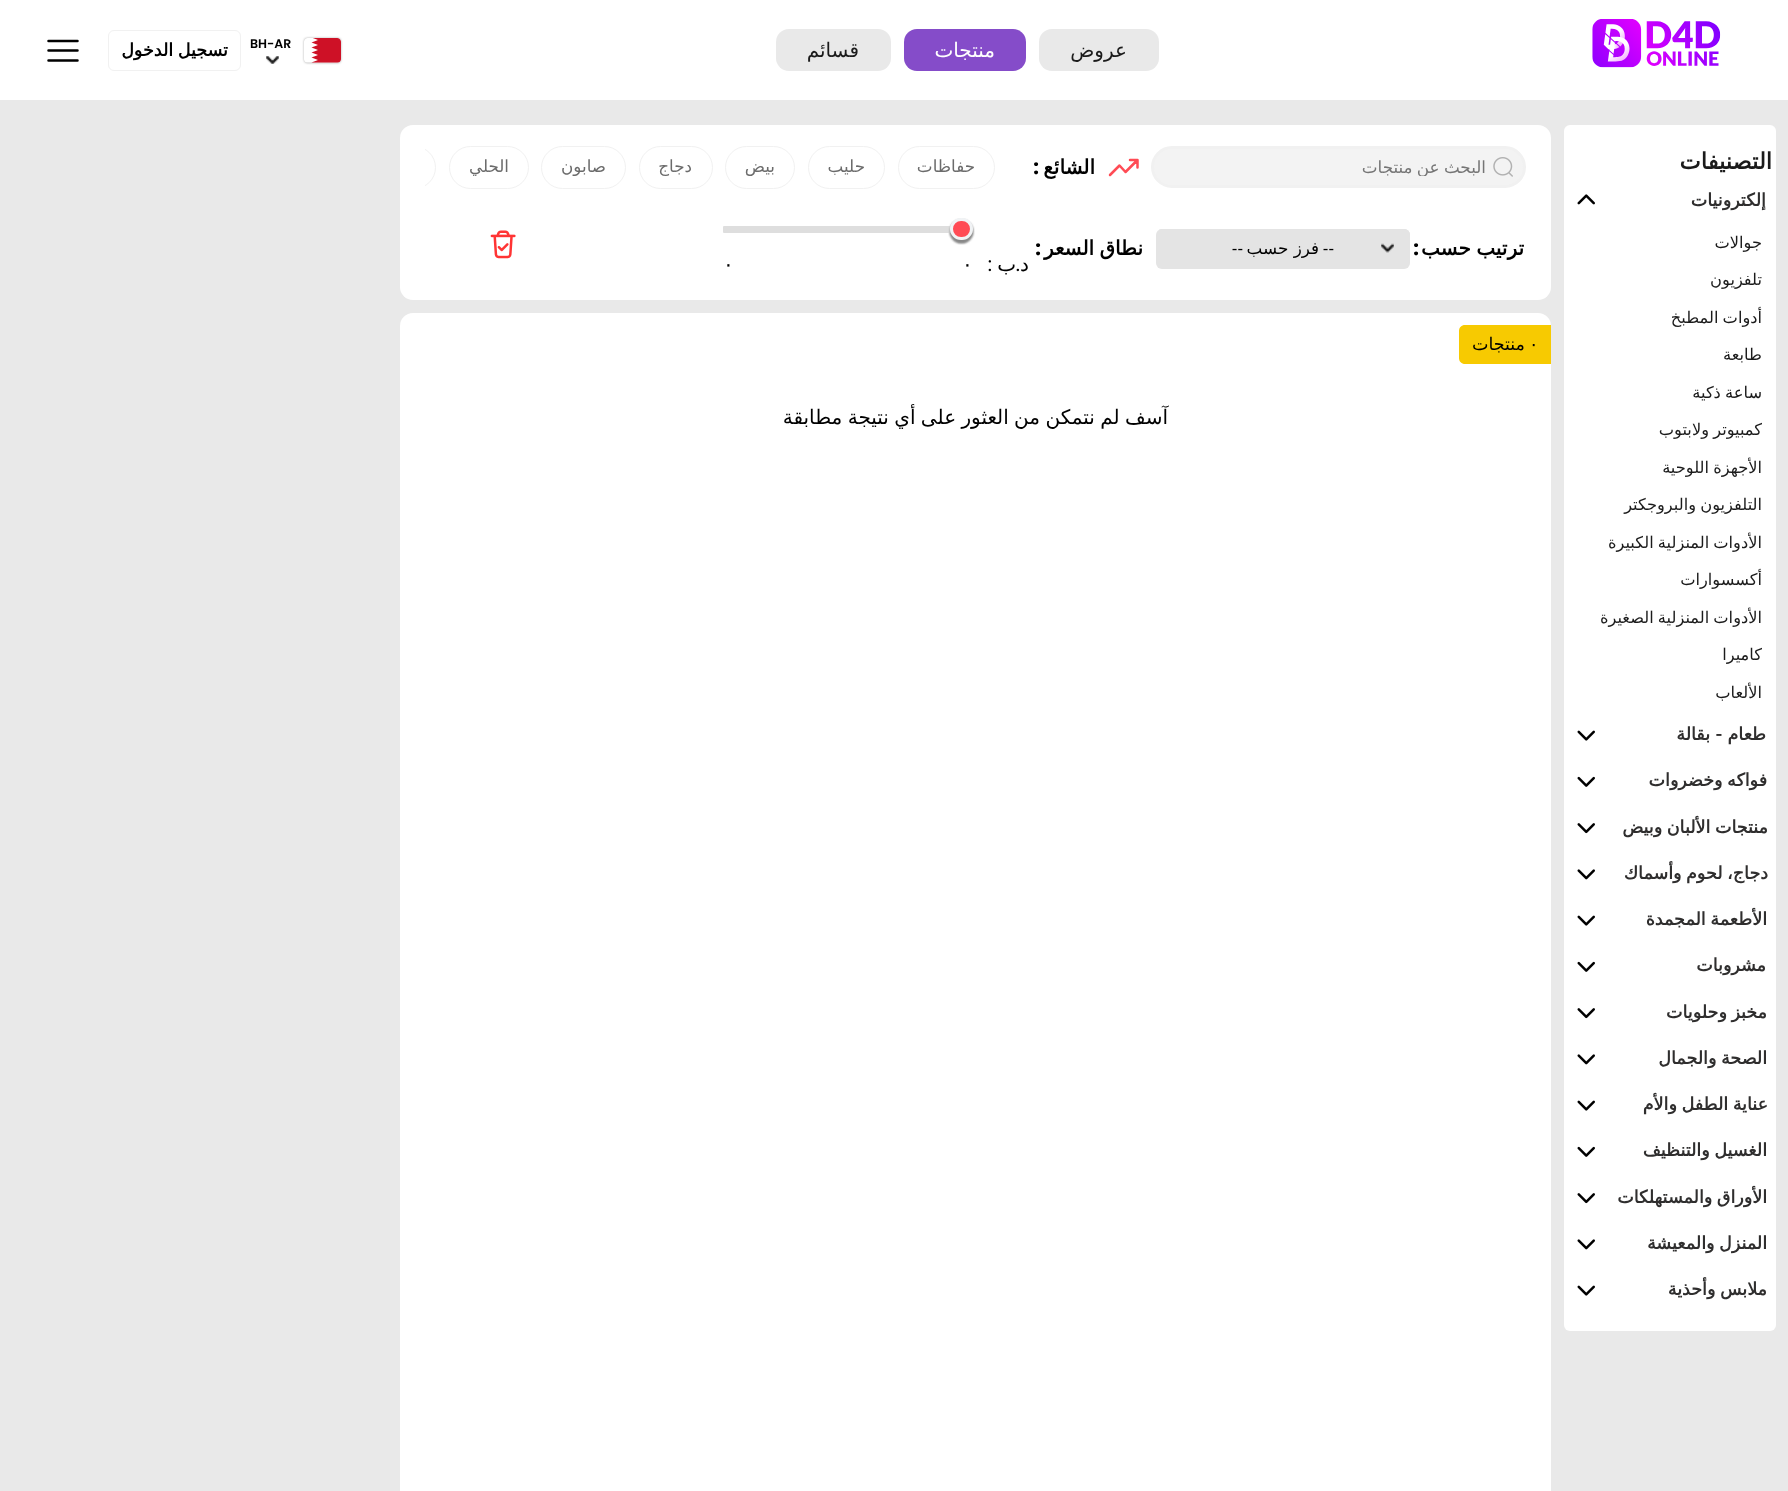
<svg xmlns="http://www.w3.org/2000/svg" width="1788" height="1491">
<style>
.a{font:20px DejaVu Sans;direction:rtl;fill:#1b1b1b}
.b{font:20px DejaVu Sans;direction:rtl;fill:#fff}
.c{font:600 12.5px Poppins;fill:#000}
.d{font:bold 17.5px DejaVu Sans;direction:rtl;fill:#000}
.e{font:bold 22.5px DejaVu Sans;direction:rtl;fill:#1b1b1b}
.f{font:bold 17.5px DejaVu Sans;direction:rtl;fill:#2f2e2e}
.g{font:16.25px DejaVu Sans;direction:rtl;fill:#1b1b1b}
.h{font:16.75px DejaVu Sans;direction:rtl;fill:#757575}
.i{font:bold 20px DejaVu Sans;direction:rtl;fill:#000}
.j{font:bold 20px Poppins;direction:rtl;fill:#000}
.k{font:16.75px DejaVu Sans;direction:rtl;fill:#6b6b6b}
.l{font:16.75px Liberation Sans;direction:rtl;fill:#000}
.m{font:16.75px DejaVu Sans;direction:rtl;fill:#000}
.n{font:20px DejaVu Sans;direction:rtl;fill:#000}
.o{font:20px Poppins;direction:rtl;fill:#000}
.p{font:20px DejaVu Sans;fill:#000}
.q{font:17.5px DejaVu Sans;fill:#000}
.r{font:17.5px DejaVu Sans;direction:rtl;fill:#000}
</style>
<defs>
<clipPath id="clip1"><path d="M425 146h576v43H425z"/></clipPath>
<clipPath id="clip2"><path d="M1183 158h303v18H1183z"/></clipPath>
</defs>
<rect width="100%" height="100%" fill="#e9e9e9"/>
<path fill="#fff" d="M0 0h1788v100H0z"/>
<image href="1.png" x="1592" y="19" width="129" height="49"/>
<rect fill="#e9e9e9" x="1039" y="29" width="120" height="42" rx="13"/>
<rect fill="#854cc9" x="904" y="29" width="122" height="42" rx="13"/>
<rect fill="#e9e9e9" x="776" y="29" width="115" height="42" rx="13"/>
<rect fill="#0000004f" filter="blur(1px)" x="304" y="38" width="37" height="25" rx="4"/>
<image href="2.png" x="304" y="38" width="37" height="25"/>
<image href="3.png" x="266" y="56" width="13" height="8"/>
<rect fill="none" stroke="#f1f1f1" x="108.5" y="30.5" width="132" height="40" rx="5.5"/>
<path fill="none" stroke="#000" stroke-width="2.5" stroke-linecap="round" stroke-linejoin="round" d="M48.5 50.5h29m-29-9.5h29m-29 19.5h29"/>
<rect fill="#fff" x="1564" y="125" width="212" height="1206" rx="6"/>
<image href="4.png" x="1577" y="194" width="18" height="11"/>
<image href="5.png" x="1577" y="730" width="18" height="11"/>
<image href="6.png" x="1577" y="776" width="18" height="11"/>
<image href="7.png" x="1577" y="823" width="18" height="11"/>
<image href="8.png" x="1577" y="869" width="18" height="11"/>
<image href="5.png" x="1577" y="915" width="18" height="11"/>
<image href="6.png" x="1577" y="961" width="18" height="11"/>
<image href="7.png" x="1577" y="1008" width="18" height="11"/>
<image href="8.png" x="1577" y="1054" width="18" height="11"/>
<image href="5.png" x="1577" y="1100" width="18" height="11"/>
<image href="6.png" x="1577" y="1146" width="18" height="11"/>
<image href="7.png" x="1577" y="1193" width="18" height="11"/>
<image href="8.png" x="1577" y="1239" width="18" height="11"/>
<image href="5.png" x="1577" y="1285" width="18" height="11"/>
<rect fill="#fff" x="400" y="125" width="1151" height="175" rx="13"/>
<rect fill="#f3f3f3" stroke="#f1f1f1" stroke-width="3" x="1152.5" y="147.5" width="372" height="39" rx="19.5"/>
<image href="9.png" x="1493" y="157" width="20" height="20"/>
<path fill="none" stroke="#ff4b55" stroke-width="2.5" stroke-linecap="round" stroke-linejoin="round" d="M1130 160h7.5v7.5m0-7.5l-12 12l-6-6.5l-9.5 9.5"/>
<rect fill="none" stroke="#f1f1f1" x="898.5" y="146.5" width="96" height="42" rx="21"/>
<rect fill="none" stroke="#f1f1f1" x="808.5" y="146.5" width="76" height="42" rx="21"/>
<rect fill="none" stroke="#f1f1f1" x="725.5" y="146.5" width="69" height="42" rx="21"/>
<rect fill="none" stroke="#f1f1f1" x="639.5" y="146.5" width="73" height="42" rx="21"/>
<rect fill="none" stroke="#f1f1f1" x="541.5" y="146.5" width="84" height="42" rx="21"/>
<rect fill="none" stroke="#f1f1f1" x="449.5" y="146.5" width="79" height="42" rx="21"/>
<g clip-path="url(#clip1)">
<rect fill="none" stroke="#f1f1f1" x="375.5" y="146.5" width="60" height="42" rx="21"/>
</g>
<rect fill="#e4e4e4" x="1156" y="229" width="254" height="40" rx="6"/>
<image href="10.png" x="1159" y="229" width="251" height="24"/>
<rect fill="#888" filter="blur(1px)" x="950" y="220" width="23" height="23" rx="11.5"/>
<rect fill="none" stroke="#f1f3f5" stroke-width="3" x="951.5" y="219.5" width="20" height="19" rx="9.5"/>
<rect fill="#dedede" x="723" y="226" width="250" height="7" rx="1"/>
<rect fill="#888" filter="blur(1px)" x="950" y="220" width="23" height="23" rx="11.5"/>
<rect fill="#ff4b55" stroke="#f1f3f5" stroke-width="3" x="951.5" y="219.5" width="20" height="19" rx="9.5"/>
<image href="11.png" x="490" y="230" width="26" height="29"/>
<rect fill="#fff" x="400" y="313" width="1151" height="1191" rx="13"/>
<path fill="#f7ca01" d="M1465 325h86v39h-86c-3.5 0-6-2.5-6-6v-27c0-3.5 2.5-6 6-6z"/>
<text class="a" x="1127" y="57">عروض</text>
<text class="b" x="995" y="57">منتجات</text>
<text class="a" x="859" y="57">قسائم</text>
<text class="c" x="250" y="48">BH-AR</text>
<text class="d" x="228" y="56" word-spacing="-1">تسجيل الدخول</text>
<text class="e" x="1772" y="169">التصنيفات</text>
<text class="f" x="1766" y="206">إلكترونيات</text>
<text class="g" x="1762" y="248">جوالات</text>
<text class="g" x="1762" y="285">تلفزيون</text>
<text class="g" x="1762" y="323" word-spacing="-1">أدوات المطبخ</text>
<text class="g" x="1762" y="360">طابعة</text>
<text class="g" x="1762" y="398" word-spacing="-1">ساعة ذكية</text>
<text class="g" x="1762" y="435" word-spacing="-1">كمبيوتر ولابتوب</text>
<text class="g" x="1762" y="473" word-spacing="-1">الأجهزة اللوحية</text>
<text class="g" x="1762" y="510" word-spacing="-1">التلفزيون والبروجكتر</text>
<text class="g" x="1762" y="548" word-spacing="-1">الأدوات المنزلية الكبيرة</text>
<text class="g" x="1762" y="585">أكسسوارات</text>
<text class="g" x="1762" y="623" word-spacing="-1">الأدوات المنزلية الصغيرة</text>
<text class="g" x="1762" y="660">كاميرا</text>
<text class="g" x="1762" y="698">الألعاب</text>
<text class="f" x="1766" y="740">طعام - بقالة</text>
<text class="f" x="1767" y="786" word-spacing="-1">فواكه وخضروات</text>
<text class="f" x="1768" y="833" word-spacing="-1">منتجات الألبان وبيض</text>
<text class="f" x="1768" y="879" word-spacing="-1">دجاج، لحوم وأسماك</text>
<text class="f" x="1767" y="925" word-spacing="-1">الأطعمة المجمدة</text>
<text class="f" x="1766" y="971">مشروبات</text>
<text class="f" x="1767" y="1018" word-spacing="-1">مخبز وحلويات</text>
<text class="f" x="1767" y="1064" word-spacing="-1">الصحة والجمال</text>
<text class="f" x="1768" y="1110" word-spacing="-1">عناية الطفل والأم</text>
<text class="f" x="1767" y="1156" word-spacing="-1">الغسيل والتنظيف</text>
<text class="f" x="1767" y="1203" word-spacing="-1">الأوراق والمستهلكات</text>
<text class="f" x="1767" y="1249" word-spacing="-1">المنزل والمعيشة</text>
<text class="f" x="1767" y="1295" word-spacing="-1">ملابس وأحذية</text>
<g clip-path="url(#clip2)">
<text class="h" x="1486" y="173" word-spacing="-1">البحث عن منتجات</text>
</g>
<text class="i" x="1095" y="174">الشائع</text>
<text class="j" x="1039" y="174">:</text>
<text class="k" x="975" y="172">حفاظات</text>
<text class="k" x="865" y="172">حليب</text>
<text class="k" x="775" y="172">بيض</text>
<text class="k" x="692" y="172">دجاج</text>
<text class="k" x="606" y="172">صابون</text>
<text class="k" x="509" y="172">الحلي</text>
<text class="i" x="1524" y="255" word-spacing="-1">ترتيب حسب</text>
<text class="j" x="1419" y="255">:</text>
<text class="l" x="1334" y="254">--</text>
<text class="m" x="1319" y="254">فرز حسب</text>
<text class="l" x="1243" y="254">--</text>
<text class="i" x="1143" y="255" word-spacing="-1">نطاق السعر</text>
<text class="j" x="1041" y="255">:</text>
<text class="n" x="1029" y="271">د</text>
<text class="o" x="1020" y="271">.</text>
<text class="n" x="1016" y="271">ب</text>
<text class="o" x="992" y="271">:</text>
<text class="p" x="962" y="271">٠</text>
<text class="p" x="723" y="271">٠</text>
<text class="q" x="1529" y="350">٠</text>
<text class="r" x="1525" y="350">منتجات</text>
<text class="n" x="1168" y="424" word-spacing="-1">آسف لم نتمكن من العثور على أي نتيجة مطابقة</text>
</svg>
